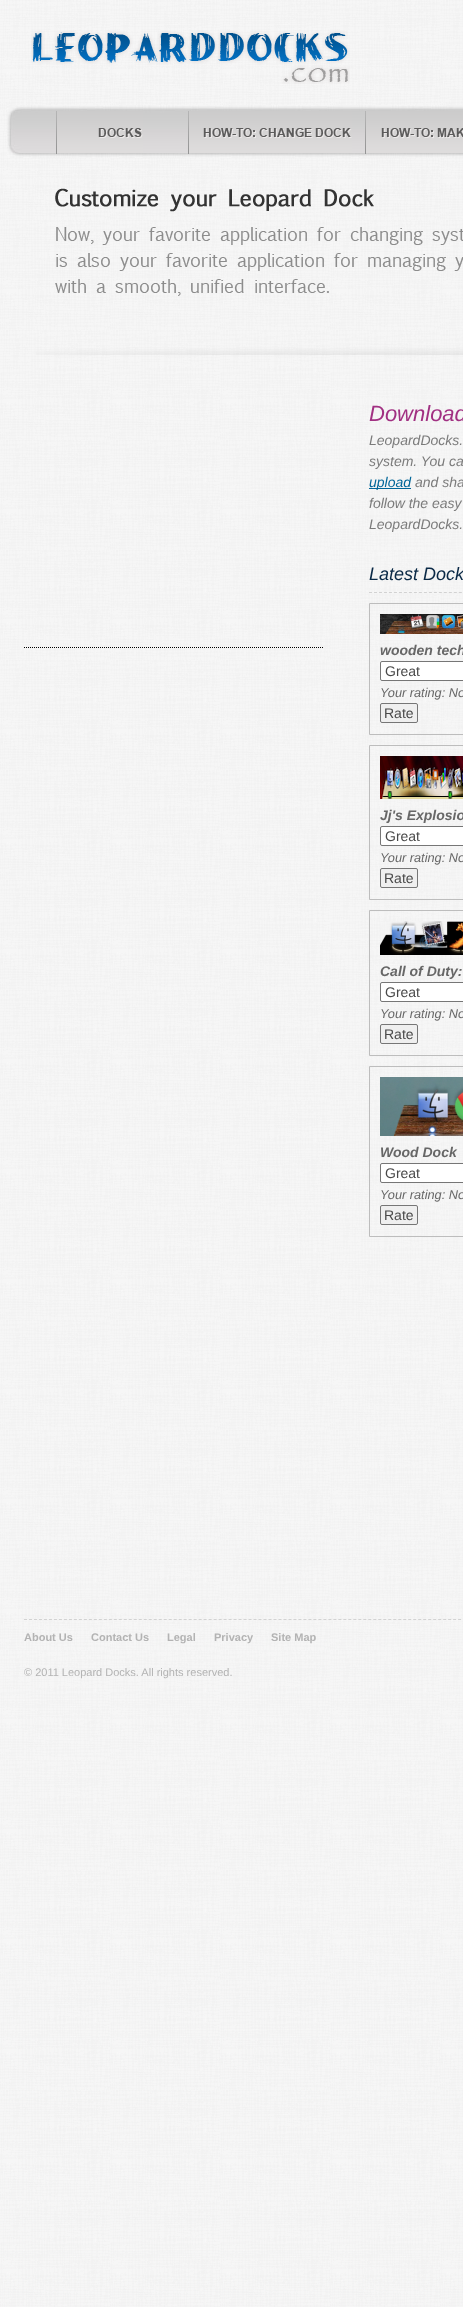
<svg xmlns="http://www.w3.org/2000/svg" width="463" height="2307">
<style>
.a{font:italic 22px Liberation Sans;fill:#a13082}
.b{font:italic 14px Liberation Sans;fill:#7b7b7b}
.c{font:italic 14px Liberation Sans;fill:#069}
.d{font:italic 18px Liberation Sans;fill:#0a2946}
.e{font:italic bold 14px Liberation Sans;fill:#676767}
.f{font:14px Liberation Sans;fill:#494949}
.g{font:italic 12.75px Liberation Sans;fill:#676767}
.h{font:bold 11px Liberation Sans;fill:#b3b3b3}
.i{font:11px Liberation Sans;fill:#b3b3b3}
</style>
<rect width="100%" height="100%" fill="#fff"/>
<image href="1.png" x="0" y="0" width="463" height="2307"/>
<image href="2.png" x="31" y="30" width="319" height="54"/>
<image href="3.png" x="7" y="105" width="456" height="53"/>
<image href="4.png" x="56" y="111" width="87" height="43"/>
<image href="5.png" x="188" y="111" width="164" height="43"/>
<image href="6.png" x="365" y="111" width="98" height="43"/>
<image href="7.png" x="36" y="188" width="427" height="167"/>
<path fill="none" stroke="#000" stroke-dasharray="1 1" d="M24 647.5h300"/>
<path fill="#069" d="M369 488h42v1H369z"/>
<path fill="none" stroke="#d2d2d2" stroke-dasharray="3 1.99" d="M369 592.5h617"/>
<path fill="none" stroke="#bdbdbd" d="M369.5 603.5h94v131H369.5z"/>
<image href="8.png" x="380" y="614" width="83" height="20"/>
<rect fill="#fff" stroke="#767676" x="380.5" y="661.5" width="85" height="19" rx="1.5"/>
<rect fill="#efefef" stroke="#767676" x="380.5" y="703.5" width="37" height="19" rx="1.5"/>
<path fill="none" stroke="#bdbdbd" d="M369.5 745.5h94v154H369.5z"/>
<image href="9.png" x="380" y="756" width="83" height="43"/>
<rect fill="#fff" stroke="#767676" x="380.5" y="826.5" width="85" height="19" rx="1.5"/>
<rect fill="#efefef" stroke="#767676" x="380.5" y="868.5" width="37" height="19" rx="1.5"/>
<path fill="none" stroke="#bdbdbd" d="M369.5 910.5h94v145H369.5z"/>
<image href="10.png" x="380" y="921" width="83" height="34"/>
<rect fill="#fff" stroke="#767676" x="380.5" y="982.5" width="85" height="19" rx="1.5"/>
<rect fill="#efefef" stroke="#767676" x="380.5" y="1024.5" width="37" height="19" rx="1.5"/>
<path fill="none" stroke="#bdbdbd" d="M369.5 1066.5h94v170H369.5z"/>
<image href="11.png" x="380" y="1077" width="83" height="59"/>
<rect fill="#fff" stroke="#767676" x="380.5" y="1163.5" width="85" height="19" rx="1.5"/>
<rect fill="#efefef" stroke="#767676" x="380.5" y="1205.5" width="37" height="19" rx="1.5"/>
<path fill="none" stroke="#d2d2d2" stroke-dasharray="3 1.99" d="M24 1619.5h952"/>
<text class="a" x="369" y="421">Download</text>
<text class="b" x="369" y="445">LeopardDocks.</text>
<text class="b" x="369" y="466">system. You ca</text>
<text class="c" x="369" y="487">upload</text>
<text class="b" x="415" y="487">and sha</text>
<text class="b" x="369" y="508">follow the easy</text>
<text class="b" x="369" y="529">LeopardDocks.</text>
<text class="d" x="369" y="580">Latest Dock</text>
<text class="e" x="380" y="655">wooden tech</text>
<text class="f" x="385" y="676">Great</text>
<text class="g" x="380" y="697">Your rating: No</text>
<text class="f" x="384" y="718">Rate</text>
<text class="e" x="380" y="820">Jj's Explosio</text>
<text class="f" x="385" y="841">Great</text>
<text class="g" x="380" y="862">Your rating: No</text>
<text class="f" x="384" y="883">Rate</text>
<text class="e" x="380" y="976">Call of Duty:</text>
<text class="f" x="385" y="997">Great</text>
<text class="g" x="380" y="1018">Your rating: No</text>
<text class="f" x="384" y="1039">Rate</text>
<text class="e" x="380" y="1157">Wood Dock</text>
<text class="f" x="385" y="1178">Great</text>
<text class="g" x="380" y="1199">Your rating: No</text>
<text class="f" x="384" y="1220">Rate</text>
<text class="h" x="24" y="1641">About Us</text>
<text class="h" x="91" y="1641">Contact Us</text>
<text class="h" x="167" y="1641">Legal</text>
<text class="h" x="214" y="1641">Privacy</text>
<text class="h" x="271" y="1641">Site Map</text>
<text class="i" x="24" y="1676">© 2011 Leopard Docks. All rights reserved.</text>
</svg>
